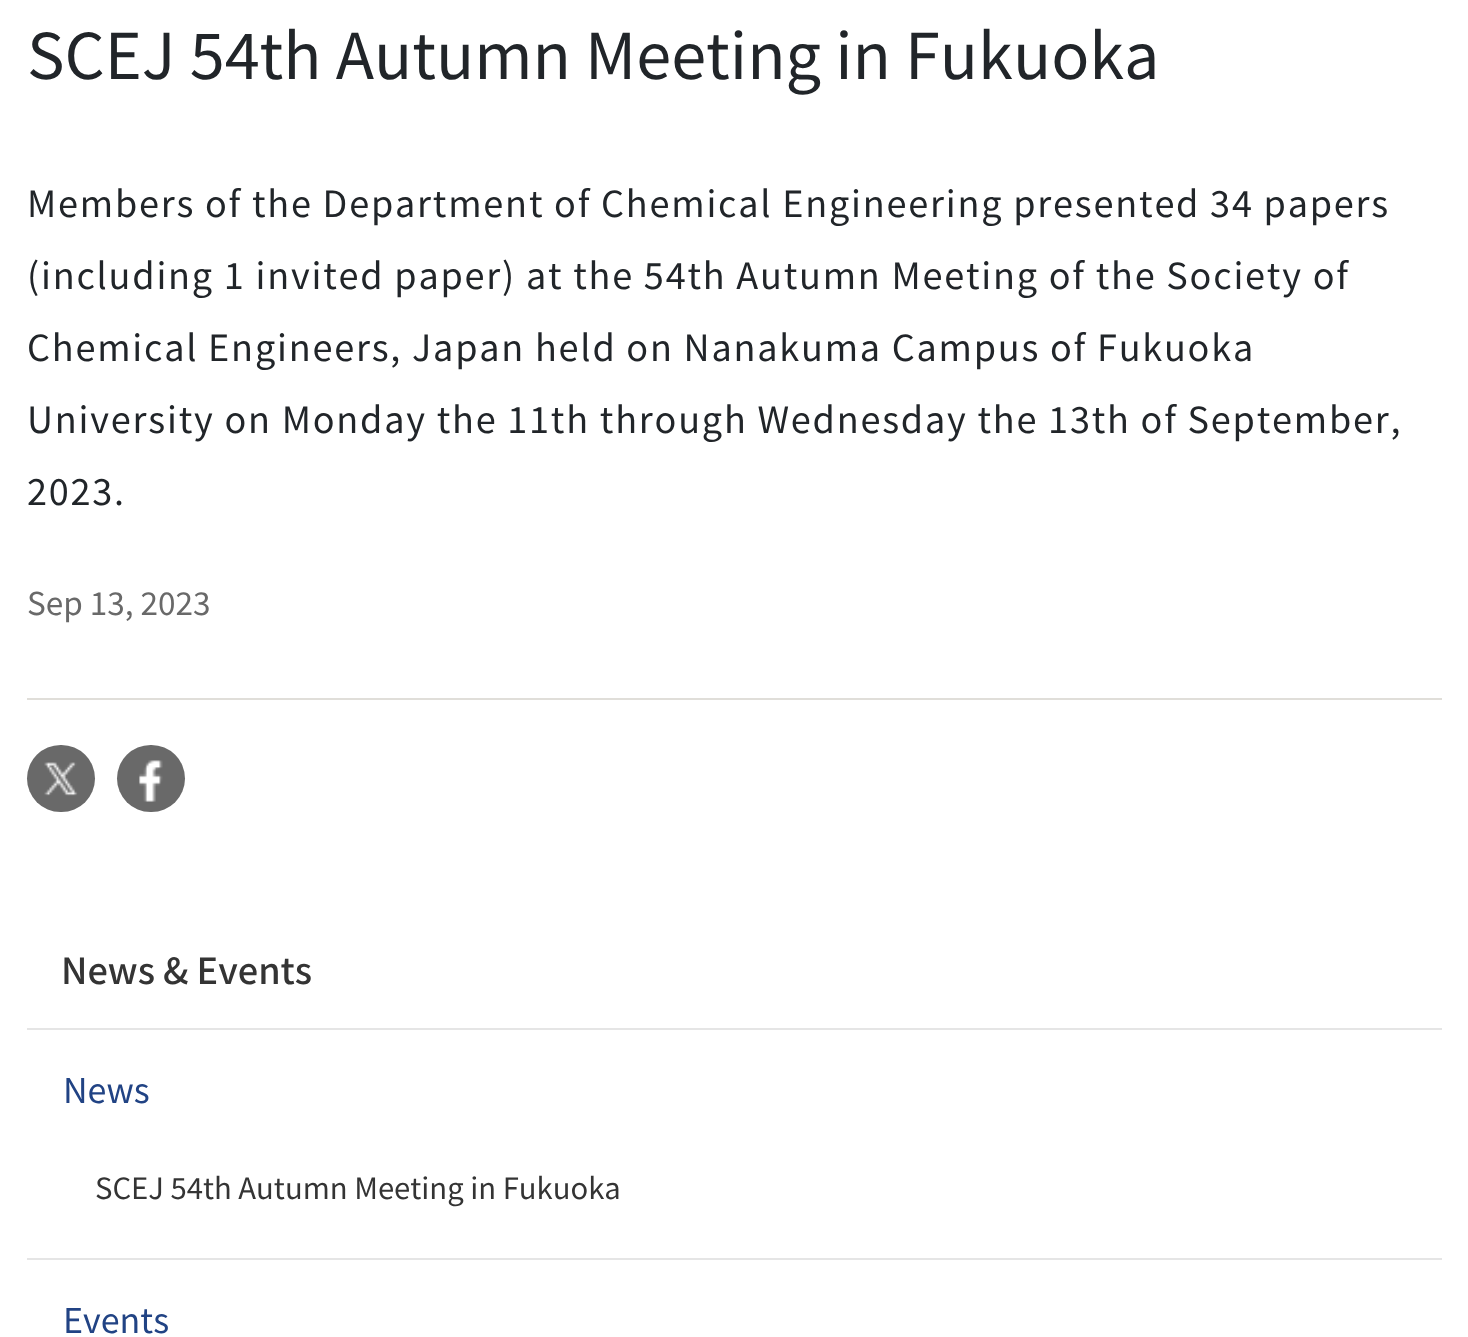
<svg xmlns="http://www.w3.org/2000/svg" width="1468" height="1337">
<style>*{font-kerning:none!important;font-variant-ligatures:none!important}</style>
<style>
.a{font:63px Noto Sans JP;fill:#212529}
.b{font:36px Noto Sans JP;letter-spacing:1.8px;fill:#212529}
.c{font:31.5px Noto Sans JP;fill:#696969}
.d{font:500 36px Noto Sans JP;fill:#343434}
.e{font:34px Noto Sans JP;fill:#214384}
.f{font:29.25px Noto Sans JP;fill:#343434}
</style>
<rect width="100%" height="100%" fill="#fff"/>
<path fill="#e0ded9" d="M27 698h1415v2H27z"/>
<rect fill="#696969" x="27" y="745" width="68" height="67" rx="33.5"/>
<image href="1.png" x="44" y="762" width="34" height="34"/>
<rect fill="#696969" x="117" y="745" width="68" height="67" rx="33.5"/>
<image href="2.png" x="139" y="760" width="24" height="42"/>
<path fill="#e5e5e5" d="M27 1028h1415v2H27z"/>
<path fill="#e5e5e5" d="M27 1258h1415v2H27z"/>
<text class="a" x="27" y="79">SCEJ 54th Autumn Meeting in Fukuoka</text>
<text class="b" x="27" y="217">Members of the Department of Chemical Engineering presented 34 papers</text>
<text class="b" x="27" y="289">(including 1 invited paper) at the 54th Autumn Meeting of the Society of</text>
<text class="b" x="27" y="361">Chemical Engineers, Japan held on Nanakuma Campus of Fukuoka</text>
<text class="b" x="27" y="433">University on Monday the 11th through Wednesday the 13th of September,</text>
<text class="b" x="27" y="505">2023.</text>
<text class="c" x="27" y="615">Sep 13, 2023</text>
<text class="d" x="61" y="984">News &amp; Events</text>
<text class="e" x="63" y="1103">News</text>
<text class="f" x="95" y="1199">SCEJ 54th Autumn Meeting in Fukuoka</text>
<text class="e" x="63" y="1333">Events</text>
</svg>
